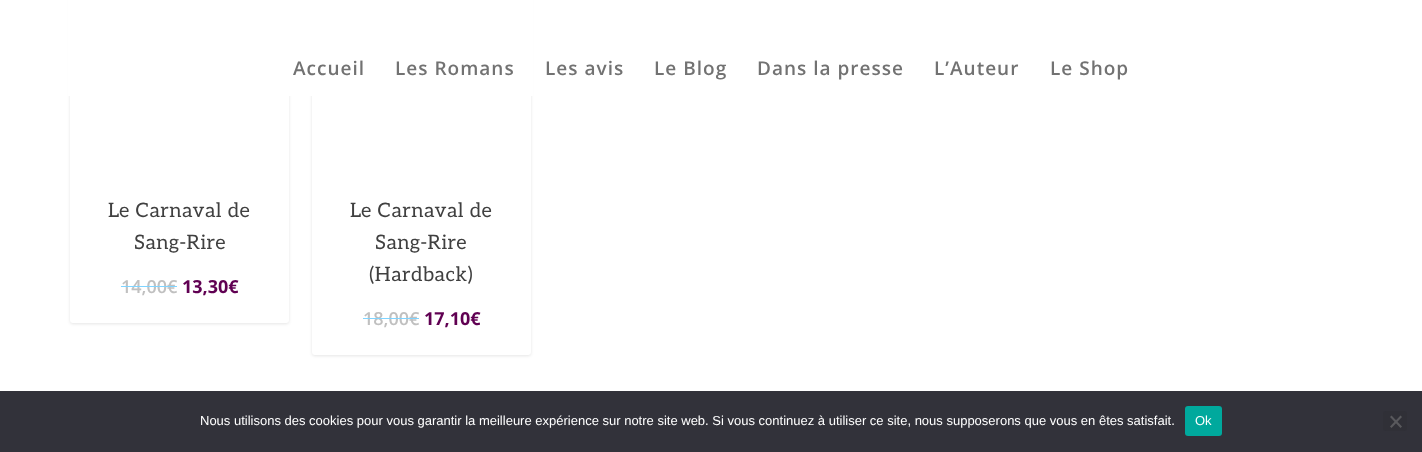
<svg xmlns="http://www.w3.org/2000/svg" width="1422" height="452">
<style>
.a{font:600 19px Open Sans;letter-spacing:1px;fill:#727272}
.b{font:20px Aleo;letter-spacing:0.5px;fill:#404040}
.c{font:600 18px Open Sans;fill:#c0c0c0}
.d{font:bold 18px Open Sans;fill:#600052}
.e{font:13px Liberation Sans;fill:#fff}
</style>
<rect width="100%" height="100%" fill="#fff"/>
<rect fill="#0000001a" filter="blur(1.5px)" x="70" y="-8" width="219" height="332" rx="3"/>
<rect fill="#fff" x="70" y="-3" width="219" height="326" rx="3"/>
<rect fill="#0000001a" filter="blur(1.5px)" x="312" y="-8" width="219" height="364" rx="3"/>
<rect fill="#fff" x="312" y="-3" width="219" height="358" rx="3"/>
<path fill="#fff" d="M68 0h465v96H68z"/>
<path fill="#32323a" d="M0 391h1422v61H0z"/>
<rect fill="#00a99d" x="1185" y="406" width="37" height="30" rx="3"/>
<rect fill="#303037" x="1383" y="411" width="24" height="20" rx="3"/>
<path fill="#59595d" d="M1400.5 415.5l1.5 1.5l-10.5 11l-1.5-1.5z"/>
<path fill="#59595d" d="M1390 417l1.5-1.5l10.5 11l-1.5 1.5z"/>
<text class="a" x="293" y="75">Accueil</text>
<text class="a" x="395" y="75">Les Romans</text>
<text class="a" x="545" y="75">Les avis</text>
<text class="a" x="654" y="75">Le Blog</text>
<text class="a" x="757" y="75">Dans la presse</text>
<text class="a" x="934" y="75">L’Auteur</text>
<text class="a" x="1050" y="75">Le Shop</text>
<text class="b" x="108" y="217">Le Carnaval de</text>
<text class="b" x="134" y="249">Sang-Rire</text>
<text class="c" x="121" y="293">14,00€</text>
<path fill="#80d4ff" d="M121 286h56v1H121z"/>
<text class="d" x="182" y="293">13,30€</text>
<text class="b" x="350" y="217">Le Carnaval de</text>
<text class="b" x="375" y="249">Sang-Rire</text>
<text class="b" x="369" y="281">(Hardback)</text>
<text class="c" x="363" y="325">18,00€</text>
<path fill="#80d4ff" d="M363 318h56v1H363z"/>
<text class="d" x="424" y="325">17,10€</text>
<text class="e" x="200" y="425">Nous utilisons des cookies pour vous garantir la meilleure expérience sur notre site web. Si vous continuez à utiliser ce site, nous supposerons que vous en êtes satisfait.</text>
<text class="e" x="1195" y="425">Ok</text>
</svg>
